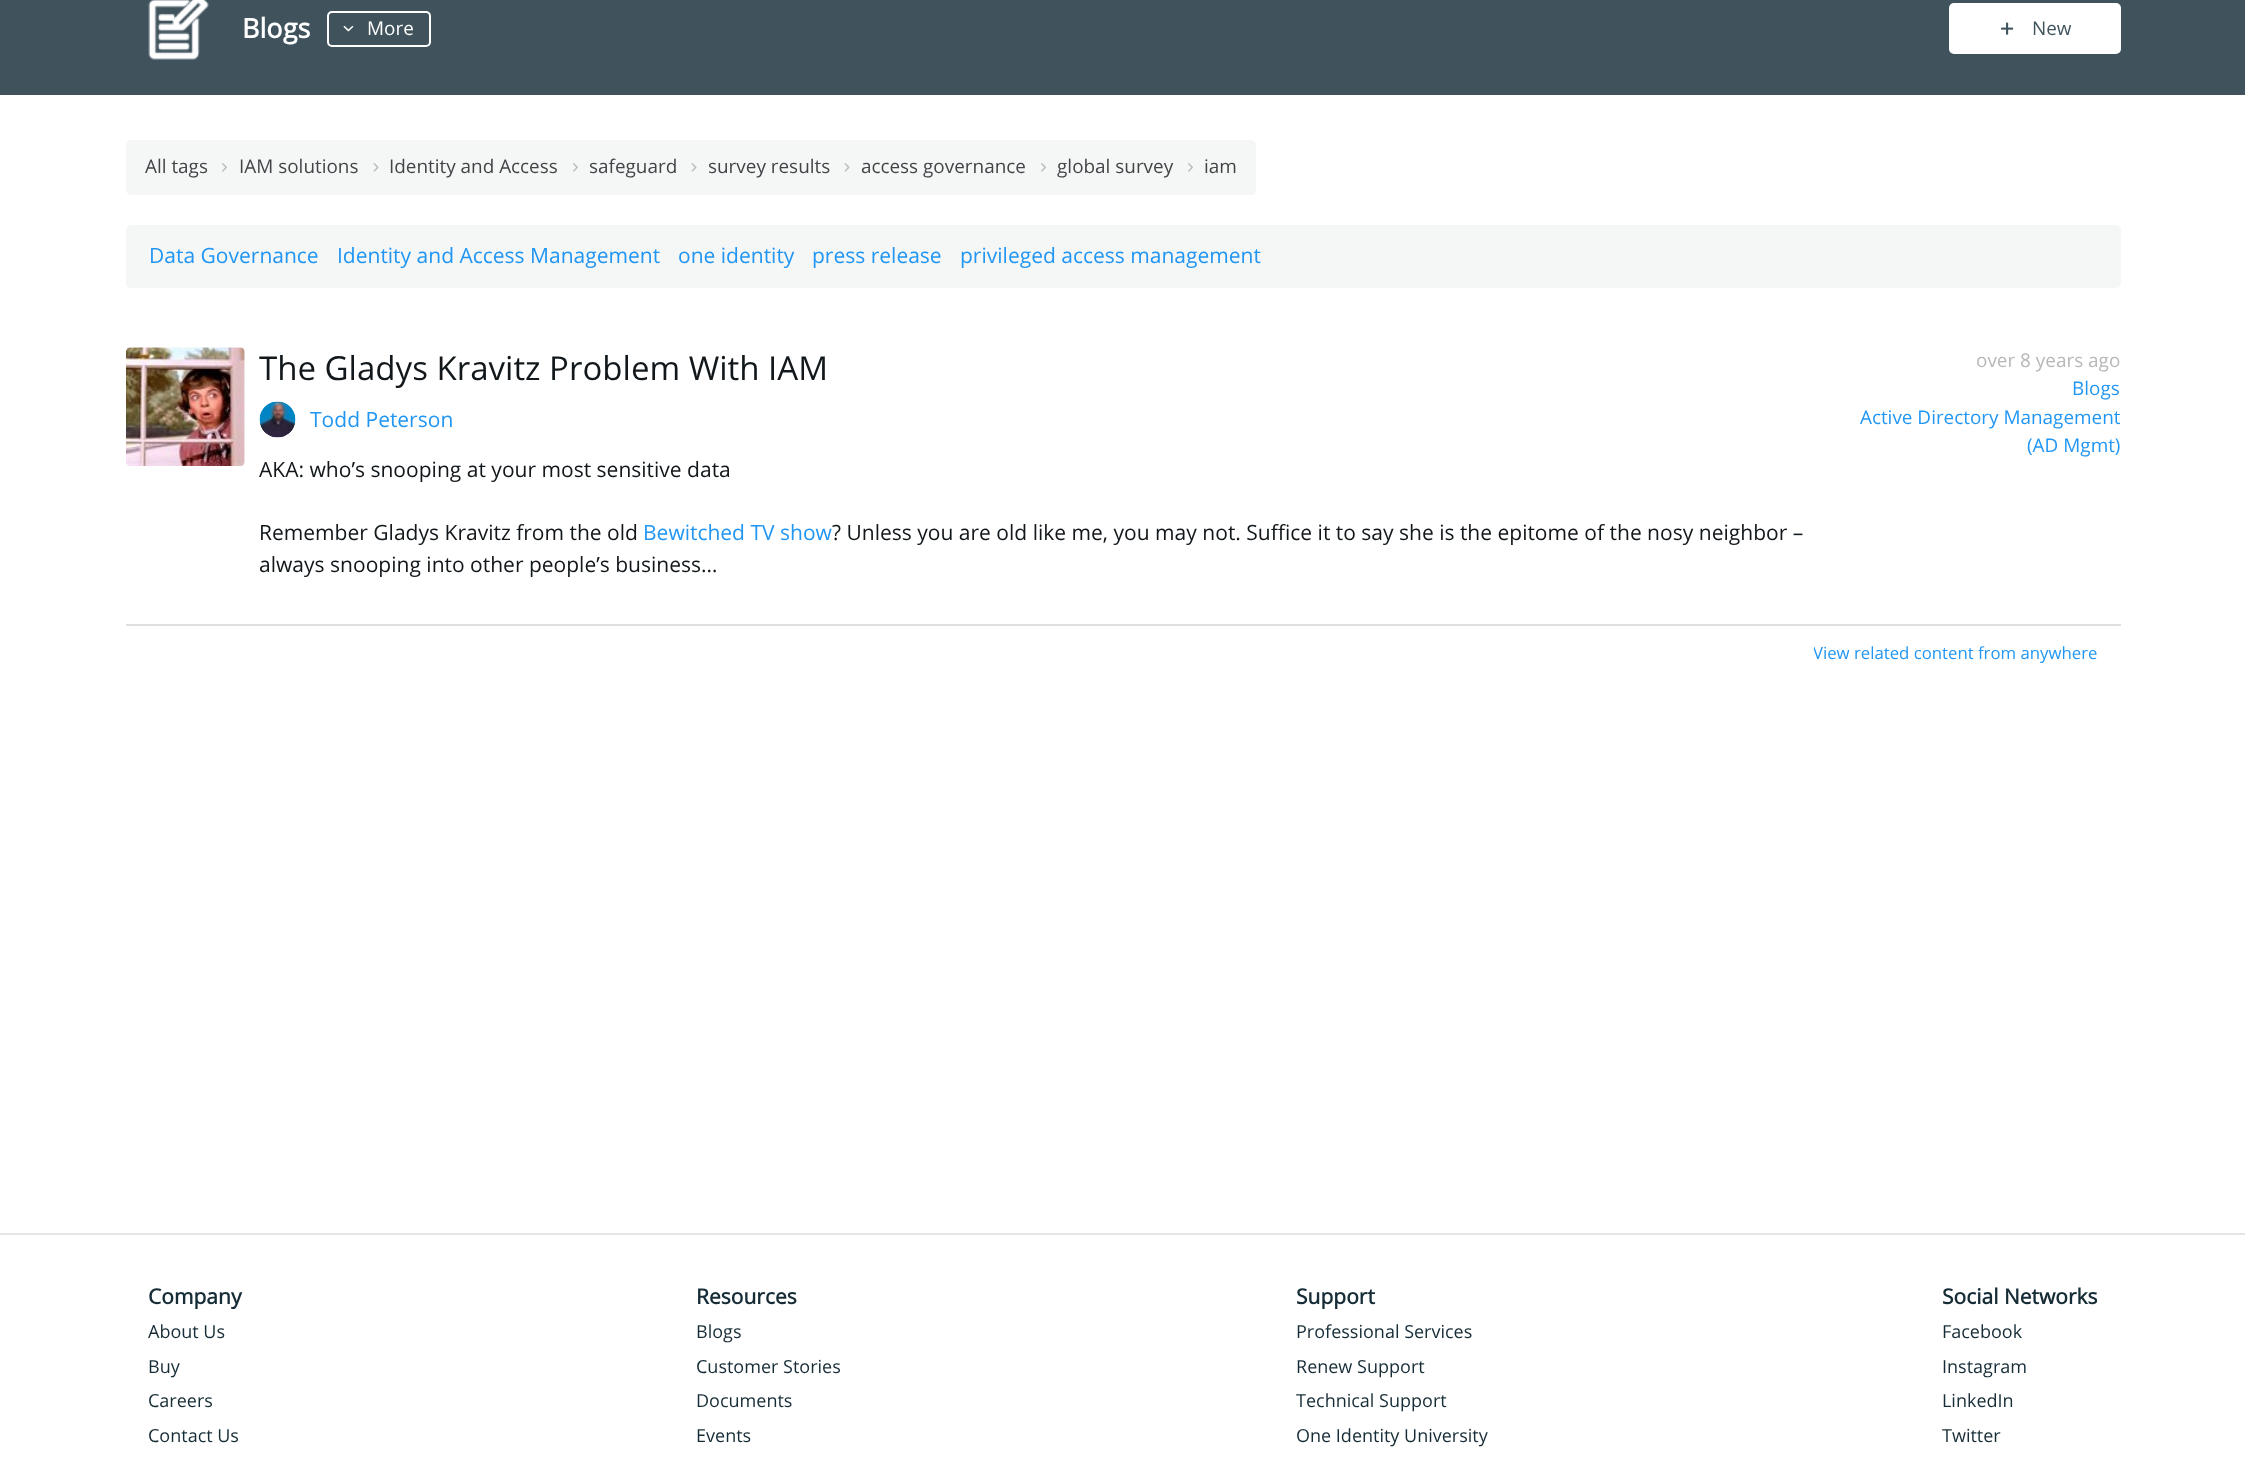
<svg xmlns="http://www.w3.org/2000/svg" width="2245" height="1457">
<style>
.a{font:bold 27px Open Sans;fill:#fff}
.b{font:18.9px Open Sans;fill:#fff}
.c{font:18.9px Open Sans;fill:#40535d}
.d{font:18.9px Open Sans;fill:#414548}
.e{font:21px Open Sans;fill:#2196f3}
.f{font:33px Open Sans;fill:#11171a}
.g{font:21px Open Sans;fill:#11171a}
.h{font:18.9px Open Sans;fill:#b5b7b8}
.i{font:18.9px Open Sans;fill:#2196f3}
.j{font:16.75px Open Sans;fill:#2196f3}
.k{font:bold 21px Open Sans;fill:#162c36}
.l{font:18px Open Sans;fill:#162c36}
</style>
<defs>
<clipPath id="clip1"><path d="M1814 641h307v25H1814z"/></clipPath>
</defs>
<rect width="100%" height="100%" fill="#fff"/>
<path fill="#40535d" d="M0 0h2245v95H0z"/>
<image href="1.png" x="148" y="0" width="61" height="60"/>
<image href="2.png" x="148" y="0" width="61" height="60"/>
<rect fill="none" stroke="#fff" stroke-width="2" x="328" y="12" width="102" height="34" rx="4"/>
<image href="3.png" x="343" y="25" width="11" height="7"/>
<rect fill="#fff" x="1949" y="3" width="172" height="51" rx="5"/>
<image href="4.png" x="2001" y="22" width="13" height="13"/>
<rect fill="#f5f6f6" x="126" y="140" width="1130" height="55" rx="5"/>
<image href="5.png" x="222" y="163" width="5" height="9"/>
<image href="6.png" x="373" y="163" width="6" height="9"/>
<image href="5.png" x="573" y="163" width="5" height="9"/>
<image href="6.png" x="691" y="163" width="6" height="9"/>
<image href="6.png" x="844" y="163" width="6" height="9"/>
<image href="5.png" x="1041" y="163" width="5" height="9"/>
<image href="5.png" x="1188" y="163" width="5" height="9"/>
<rect fill="#f5f6f6" x="126" y="225" width="1995" height="63" rx="5"/>
<path fill="#dedfdf" d="M126 624h1995v2H126z"/>
<image href="7.png" x="126" y="347" width="119" height="119"/>
<image href="8.png" x="126" y="347" width="119" height="119"/>
<image href="9.png" x="259" y="401" width="37" height="37"/>
<image href="10.png" x="259" y="401" width="37" height="37"/>
<path fill="#e5e5e6" d="M0 1233h2245v2H0z"/>
<text class="a" x="242" y="38">Blogs</text>
<text class="b" x="367" y="35">More</text>
<text class="c" x="2032" y="35">New</text>
<text class="d" x="145" y="173">All tags</text>
<text class="d" x="239" y="173">IAM solutions</text>
<text class="d" x="389" y="173">Identity and Access</text>
<text class="d" x="589" y="173">safeguard</text>
<text class="d" x="708" y="173">survey results</text>
<text class="d" x="861" y="173">access governance</text>
<text class="d" x="1057" y="173">global survey</text>
<text class="d" x="1204" y="173">iam</text>
<text class="e" x="149" y="263">Data Governance</text>
<text class="e" x="337" y="263">Identity and Access Management</text>
<text class="e" x="678" y="263">one identity</text>
<text class="e" x="812" y="263">press release</text>
<text class="e" x="960" y="263">privileged access management</text>
<text class="f" x="259" y="380">The Gladys Kravitz Problem With IAM</text>
<text class="e" x="310" y="427">Todd Peterson</text>
<text class="g" x="259" y="477">AKA: who’s snooping at your most sensitive data</text>
<text class="g" x="259" y="540">Remember Gladys Kravitz from the old</text>
<text class="e" x="643" y="540">Bewitched TV show</text>
<text class="g" x="832" y="540">? Unless you are old like me, you may not. Suffice it to say she is the epitome of the nosy neighbor –</text>
<text class="g" x="259" y="572">always snooping into other people’s business…</text>
<text class="h" x="1976" y="367">over 8 years ago</text>
<text class="i" x="2072" y="395">Blogs</text>
<text class="i" x="1860" y="424">Active Directory Management</text>
<text class="i" x="2027" y="452">(AD Mgmt)</text>
<g clip-path="url(#clip1)">
<text class="j" x="1813" y="659">View related content from anywhere</text>
</g>
<text class="k" x="148" y="1304">Company</text>
<text class="l" x="148" y="1338">About Us</text>
<text class="l" x="148" y="1373">Buy</text>
<text class="l" x="148" y="1407">Careers</text>
<text class="l" x="148" y="1442">Contact Us</text>
<text class="k" x="696" y="1304">Resources</text>
<text class="l" x="696" y="1338">Blogs</text>
<text class="l" x="696" y="1373">Customer Stories</text>
<text class="l" x="696" y="1407">Documents</text>
<text class="l" x="696" y="1442">Events</text>
<text class="k" x="1296" y="1304">Support</text>
<text class="l" x="1296" y="1338">Professional Services</text>
<text class="l" x="1296" y="1373">Renew Support</text>
<text class="l" x="1296" y="1407">Technical Support</text>
<text class="l" x="1296" y="1442">One Identity University</text>
<text class="k" x="1942" y="1304">Social Networks</text>
<text class="l" x="1942" y="1338">Facebook</text>
<text class="l" x="1942" y="1373">Instagram</text>
<text class="l" x="1942" y="1407">LinkedIn</text>
<text class="l" x="1942" y="1442">Twitter</text>
</svg>
